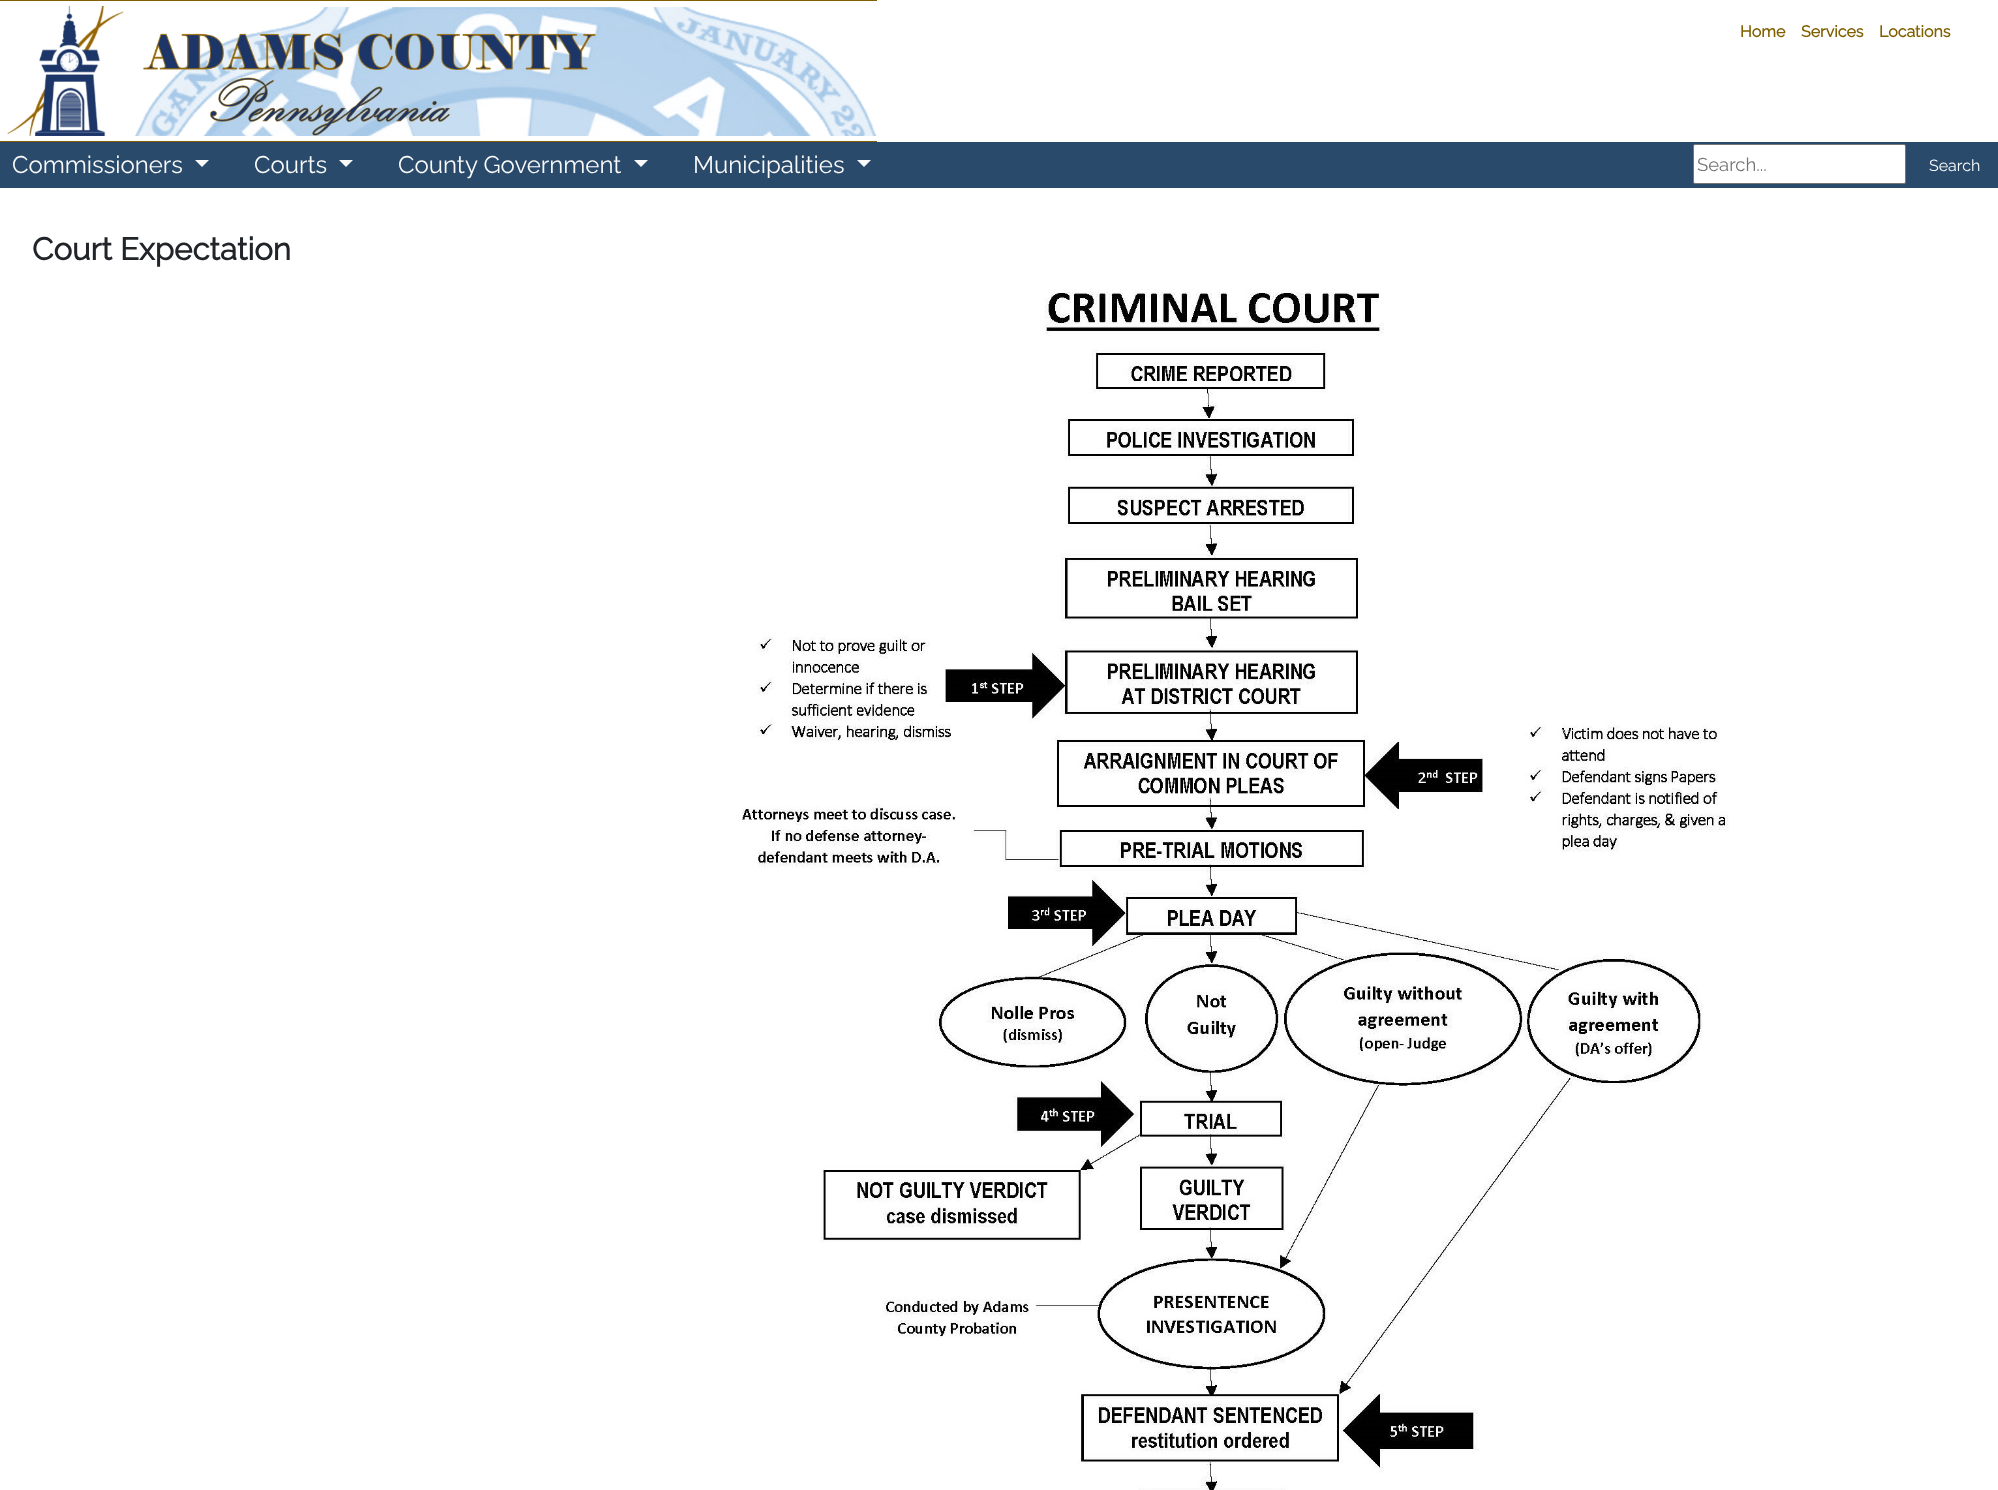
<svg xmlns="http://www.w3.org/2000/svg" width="1998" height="1490">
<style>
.a{font:bold 16px Raleway;fill:#806000}
.b{font:100 24px Raleway;fill:#fafafa}
.c{font:100 18.5px Raleway;fill:#757575}
.d{font:100 16px Raleway;fill:#fafafa}
.e{font:bold 31.25px Raleway;fill:#212529}
</style>
<rect width="100%" height="100%" fill="#fff"/>
<path fill="#806000" d="M0 0h877v1H0z"/>
<path fill="#806000" d="M0 141h877v1H0z"/>
<image href="1.png" x="7" y="6" width="870" height="130"/>
<path fill="#294a6b" d="M0 142h1998v46H0z"/>
<path fill="#fafafa" d="M195 160h14l-7 7z"/>
<path fill="#fafafa" d="M339 160h14l-7 7z"/>
<path fill="#fafafa" d="M634 160h14l-7 7z"/>
<path fill="#fafafa" d="M857 160h14l-7 7z"/>
<rect fill="#fff" stroke="#767676" x="1693.5" y="144.5" width="212" height="39" rx="1.5"/>
<image href="2.png" x="738" y="289" width="991" height="1201"/>
<text class="a" x="1740" y="37">Home</text>
<text class="a" x="1801" y="37">Services</text>
<text class="a" x="1879" y="37">Locations</text>
<text class="b" x="12" y="173">Commissioners</text>
<text class="b" x="254" y="173">Courts</text>
<text class="b" x="398" y="173">County Government</text>
<text class="b" x="693" y="173">Municipalities</text>
<text class="c" x="1697" y="171">Search...</text>
<text class="d" x="1929" y="171">Search</text>
<text class="e" x="32" y="260">Court Expectation</text>
</svg>
